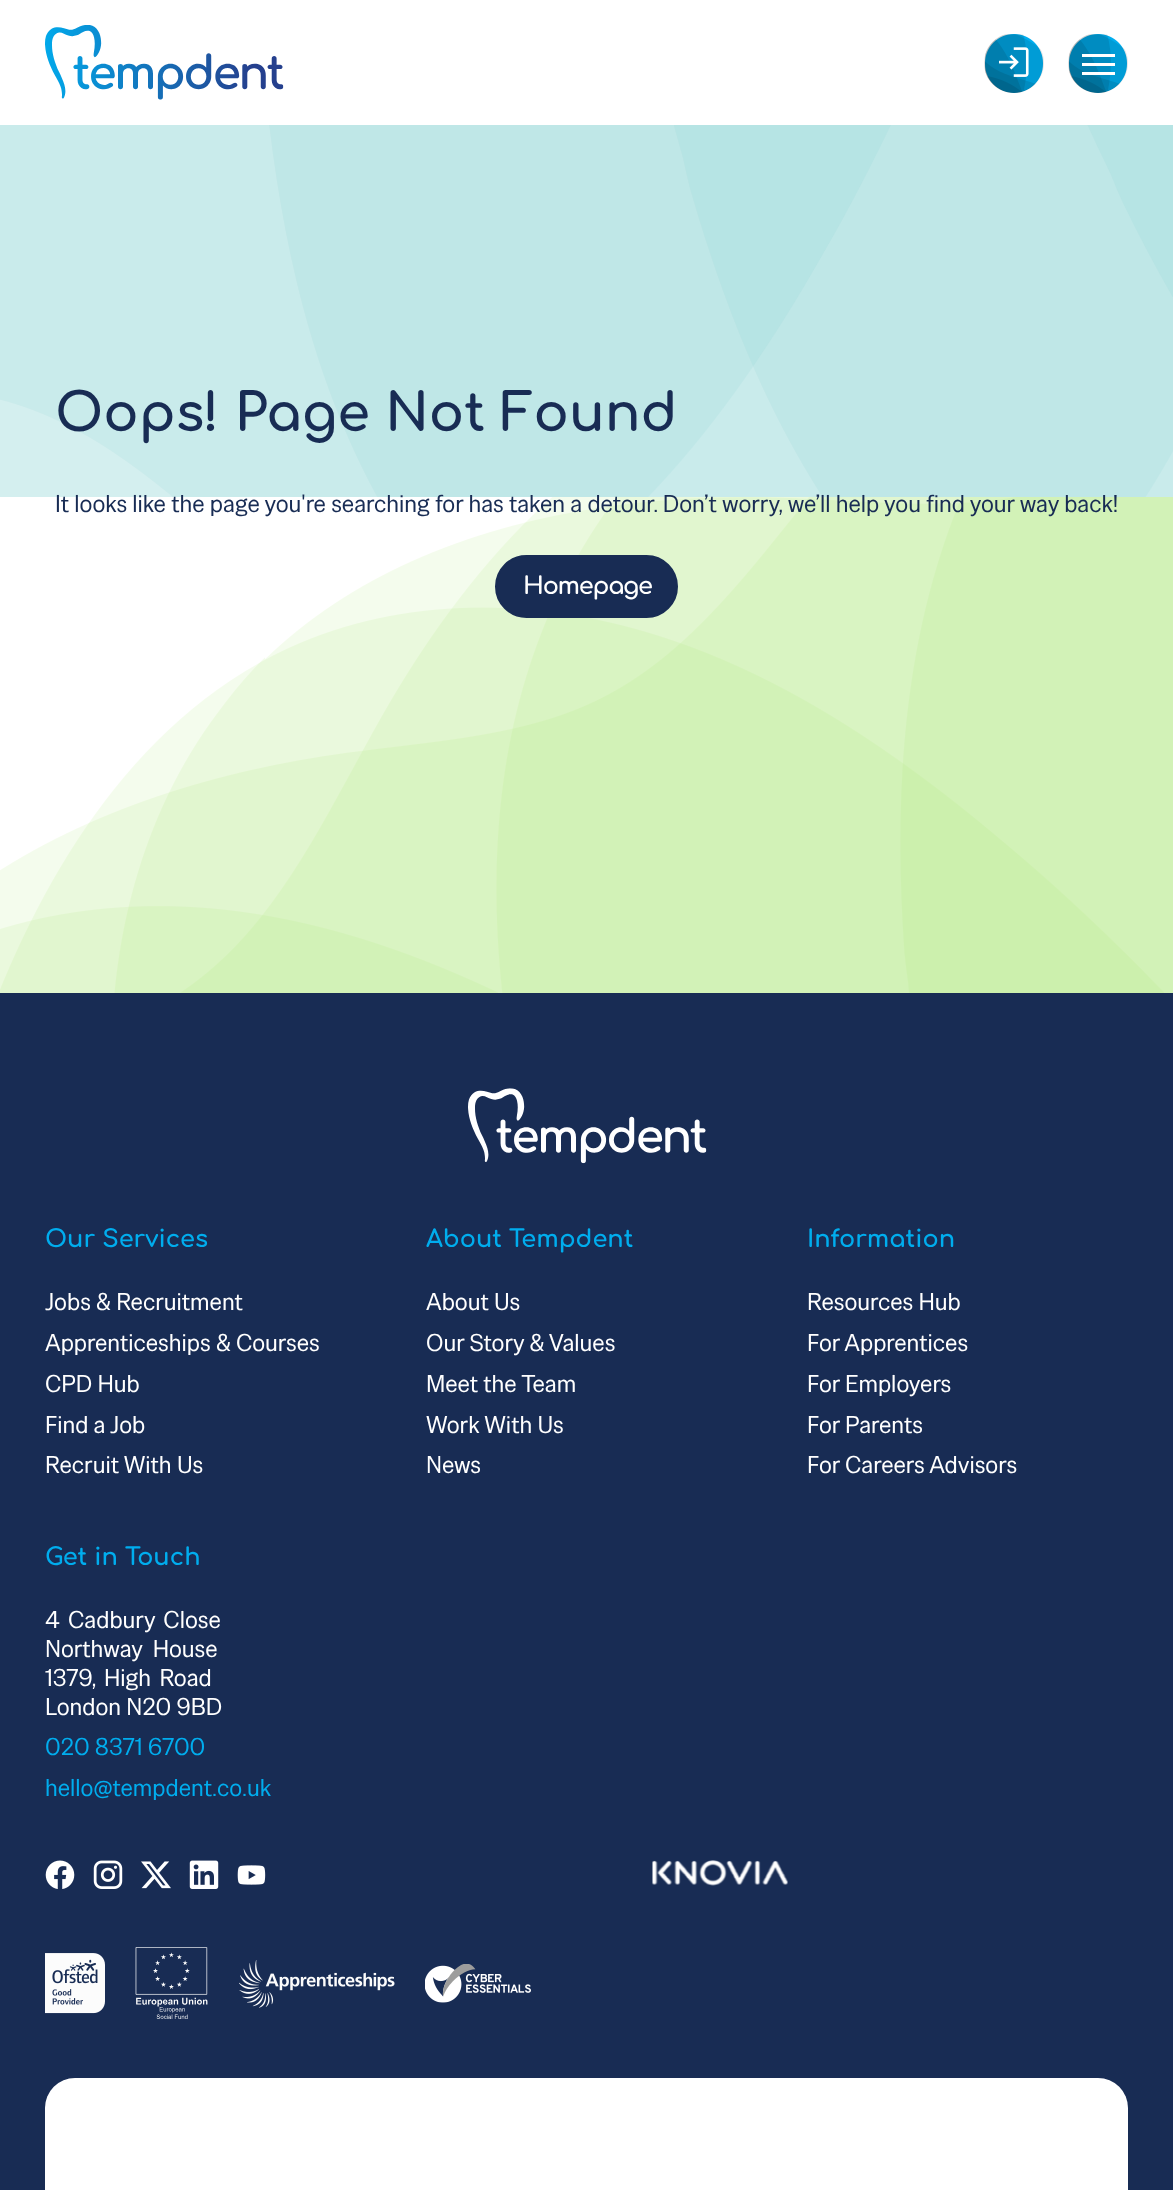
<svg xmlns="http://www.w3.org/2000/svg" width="1173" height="2190">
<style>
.a{font:bold 52.5px Comfortaa;fill:#182c54}
.b{font:24px Special Gothic;fill:#182c54}
.c{font:bold 24px Comfortaa;letter-spacing:-1.25px;fill:#fff}
.d{font:bold 24px Comfortaa;fill:#00adee}
.e{font:24px Special Gothic;fill:#fff}
.f{font:24px Special Gothic;fill:#00adee}
</style>
<rect width="100%" height="100%" fill="#fff"/>
<path fill="#e1f4f4" d="M0 125h1173v372H0z"/>
<image href="1.png" x="45" y="25" width="239" height="75"/>
<image href="2.png" x="984" y="34" width="60" height="59"/>
<image href="3.png" x="999" y="47" width="30" height="30"/>
<image href="2.png" x="1068" y="34" width="60" height="59"/>
<path fill="#fff" d="M1082 54h33v3H1082z"/>
<path fill="#fff" d="M1082 63h33v3H1082z"/>
<path fill="#fff" d="M1082 72h33v3H1082z"/>
<image href="7.png" x="674" y="125" width="499" height="372"/>
<image href="6.png" x="269" y="125" width="904" height="372"/>
<image href="4.png" x="0" y="125" width="1173" height="372"/>
<image href="5.png" x="0" y="125" width="891" height="372"/>
<image href="8.png" x="1087" y="125" width="86" height="172"/>
<image href="12.png" x="496" y="497" width="677" height="496"/>
<image href="10.png" x="114" y="497" width="1059" height="496"/>
<image href="9.png" x="0" y="497" width="1173" height="496"/>
<image href="11.png" x="180" y="497" width="993" height="496"/>
<image href="14.png" x="0" y="607" width="1164" height="386"/>
<rect fill="#182c54" stroke="#182c54" stroke-width="2" x="496" y="556" width="181" height="61" rx="30.5"/>
<image href="13.png" x="900" y="497" width="273" height="496"/>
<image href="15.png" x="0" y="906" width="498" height="87"/>
<path fill="#182c54" d="M0 993h1173v1197H0z"/>
<image href="16.png" x="468" y="1088" width="239" height="76"/>
<image href="17.png" x="45" y="1860" width="30" height="29"/>
<image href="18.png" x="93" y="1860" width="30" height="29"/>
<image href="19.png" x="141" y="1861" width="30" height="28"/>
<image href="20.png" x="189" y="1860" width="30" height="29"/>
<image href="21.png" x="237" y="1865" width="29" height="20"/>
<image href="22.png" x="652" y="1860" width="136" height="26"/>
<image href="23.png" x="45" y="1953" width="60" height="61"/>
<image href="24.png" x="135" y="1947" width="73" height="72"/>
<image href="25.png" x="239" y="1960" width="156" height="48"/>
<image href="26.png" x="425" y="1964" width="106" height="39"/>
<rect fill="#fff" x="45" y="2078" width="1083" height="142" rx="30"/>
<text class="a" x="55" y="431">Oops! Page Not Found</text>
<text class="b" x="55" y="512">It looks like the page you're searching for has taken a detour. Don’t worry, we’ll help you find your way back!</text>
<text class="c" x="523" y="594">Homepage</text>
<text class="d" x="45" y="1247">Our Services</text>
<text class="e" x="45" y="1310">Jobs &amp; Recruitment</text>
<text class="e" x="45" y="1351">Apprenticeships &amp; Courses</text>
<text class="e" x="45" y="1392">CPD Hub</text>
<text class="e" x="45" y="1433">Find a Job</text>
<text class="e" x="45" y="1473">Recruit With Us</text>
<text class="d" x="426" y="1247">About Tempdent</text>
<text class="e" x="426" y="1310">About Us</text>
<text class="e" x="426" y="1351">Our Story &amp; Values</text>
<text class="e" x="426" y="1392">Meet the Team</text>
<text class="e" x="426" y="1433">Work With Us</text>
<text class="e" x="426" y="1473">News</text>
<text class="d" x="807" y="1247">Information</text>
<text class="e" x="807" y="1310">Resources Hub</text>
<text class="e" x="807" y="1351">For Apprentices</text>
<text class="e" x="807" y="1392">For Employers</text>
<text class="e" x="807" y="1433">For Parents</text>
<text class="e" x="807" y="1473">For Careers Advisors</text>
<text class="d" x="45" y="1565">Get in Touch</text>
<text class="e" x="45" y="1628" word-spacing="3">4 Cadbury Close</text>
<text class="e" x="45" y="1657" word-spacing="5">Northway House</text>
<text class="e" x="45" y="1686" word-spacing="3">1379, High Road</text>
<text class="e" x="45" y="1715">London N20 9BD</text>
<text class="f" x="45" y="1755">020 8371 6700</text>
<text class="f" x="45" y="1796">hello@tempdent.co.uk</text>
</svg>
